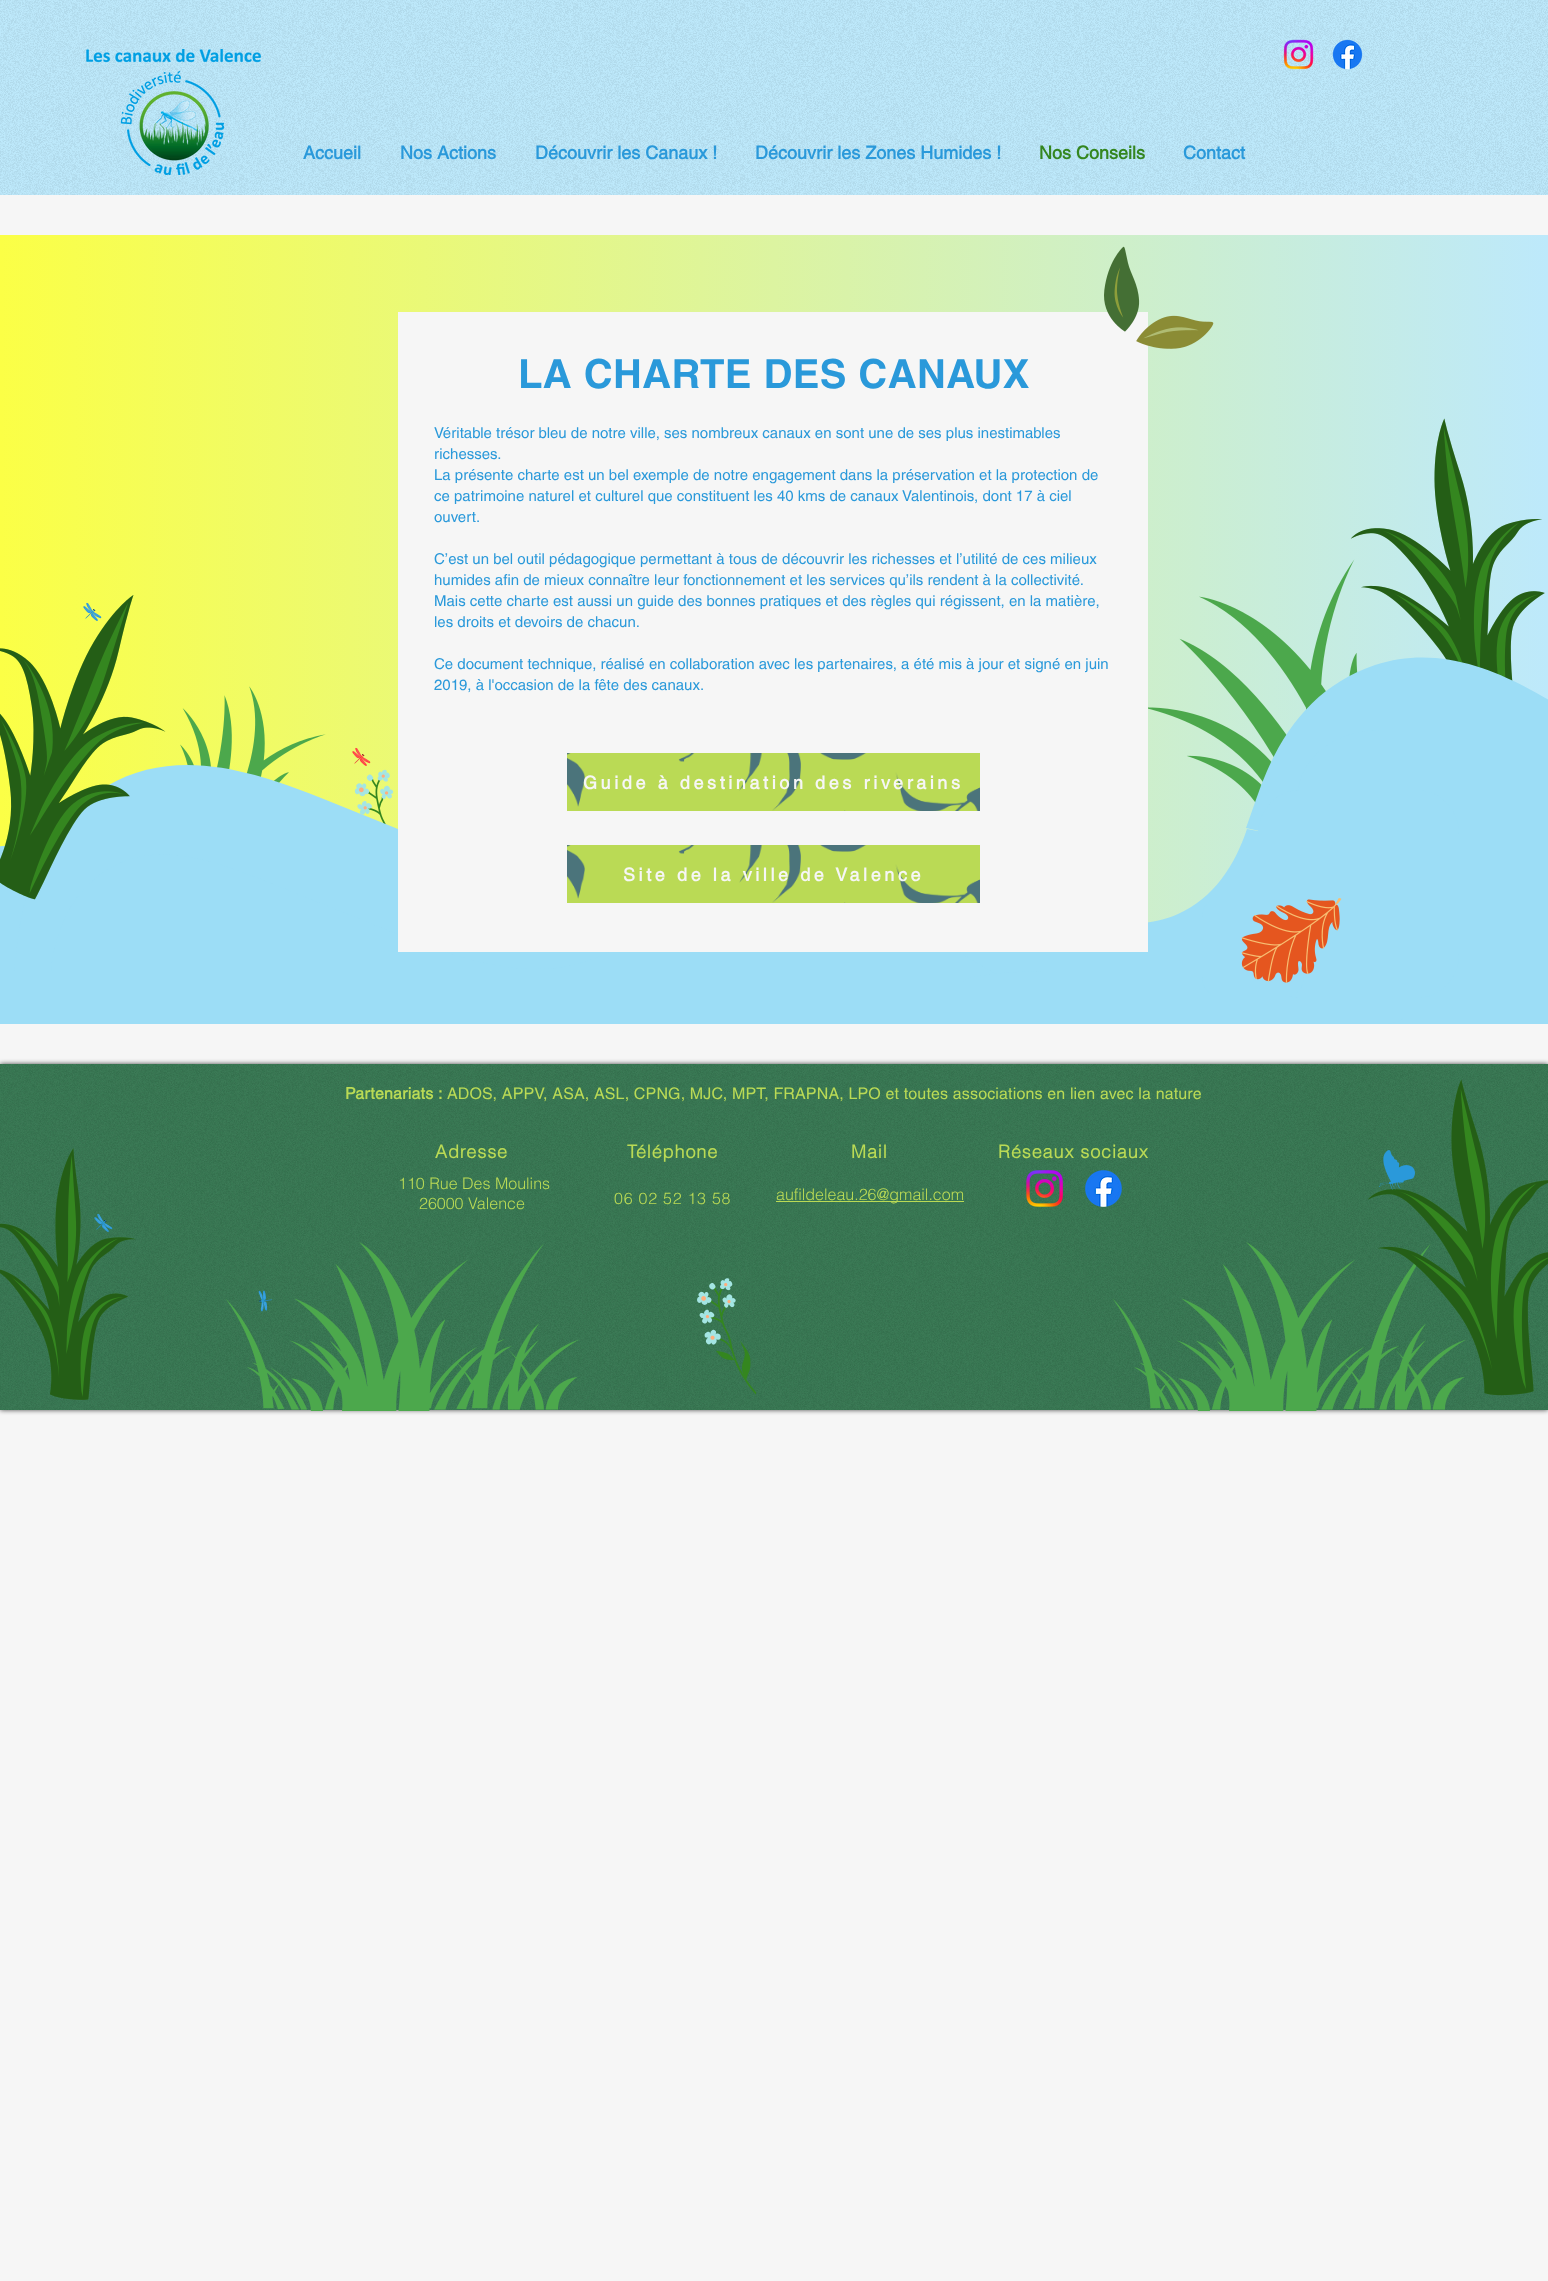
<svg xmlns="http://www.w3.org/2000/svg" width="1548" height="2281">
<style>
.a{font:bold 18px helvetica;fill:#2a99da}
.b{font:bold 18px helvetica;fill:#34861f}
.c{font:bold 40px 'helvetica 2';letter-spacing:0.4px;fill:#2a99da}
.d{font:15px helvetica;fill:#2a99da}
.e{font:bold 18px helvetica;letter-spacing:3.6px;fill:#f6f6f6}
.f{font:bold 16px helvetica;letter-spacing:0.15px;fill:#bada55}
.g{font:16px helvetica;letter-spacing:0.15px;fill:#bada55}
.h{font:bold 18px 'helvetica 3';letter-spacing:0.9px;fill:#bada55}
.i{font:300 16px helvetica;fill:#bada55}
.j{font:300 16px helvetica;letter-spacing:0.75px;fill:#bada55}
</style>
<defs>
<linearGradient id="g1" gradientUnits="userSpaceOnUse" x1="0" y1="630" x2="1548" y2="630"><stop offset="0" stop-color="#fbff46"/><stop offset="1" stop-color="#bde9fb"/></linearGradient>
</defs>
<rect width="100%" height="100%" fill="#f6f6f6"/>
<path fill="#bde9fb" d="M0 0h1548v195H0z"/>
<image href="1.png" x="0" y="0" width="1548" height="195"/>
<image href="2.png" x="86" y="49" width="175" height="126"/>
<image href="3.png" x="1283" y="39" width="31" height="31"/>
<image href="4.png" x="1332" y="39" width="31" height="31"/>
<path fill="url(#g1)" d="M0 235h1548v688H0z"/>
<image href="8.png" x="1350" y="418" width="195" height="263"/>
<image href="7.png" x="1148" y="559" width="210" height="244"/>
<path fill="#9cddf6" d="M779 1082h-663c-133 0-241-23-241-51v-140c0-28 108-51 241-51h663c133 0 241 23 241 51v140c0 28-108 51-241 51z"/>
<path fill="#9cddf6" d="M1247 829c-12 36-33 69-69 85c-60 27-118-13-166-45l-98-66c-66-44-142-95-225-68c-53 18-86 56-108 106c-8 18-14 38-21 58l36 7c12-36 33-69 69-85c60-27 118 13 166 45l98 66c66 44 142 95 225 68c53-18 85-56 108-106c8-18 14-38 21-58z"/>
<image href="10.png" x="180" y="686" width="146" height="97"/>
<image href="12.png" x="354" y="769" width="40" height="56"/>
<path fill="#9cddf6" d="M672 763c-4 38-18 74-50 97c-53 39-118 11-172-10l-109-44c-74-30-159-64-234-20c-48 28-72 72-84 124c-5 20-6 41-9 61h37c4-38 18-74 50-97c53-39 118-11 172 10l109 44c74 30 159 64 234 20c49-28 72-71 84-124c5-20 6-41 9-61z"/>
<path fill="#f6f6f6" d="M398 312h750v640H398z"/>
<image href="5.png" x="1104" y="246" width="110" height="103"/>
<image href="6.png" x="0" y="595" width="166" height="305"/>
<image href="9.png" x="83" y="602" width="19" height="19"/>
<path fill="#9cddf6" d="M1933 759c-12 36-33 69-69 85c-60 28-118-13-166-45l-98-66c-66-44-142-95-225-68c-53 18-86 56-108 106c-8 18-14 38-21 57l36 8c12-36 33-69 69-85c60-28 118 13 166 45l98 66c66 44 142 95 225 68c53-18 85-56 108-106c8-18 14-38 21-57z"/>
<image href="11.png" x="352" y="747" width="19" height="19"/>
<path fill="#9cddf6" d="M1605 1040h-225c-45 0-82-29-82-65v-180c0-36 37-65 82-65h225c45 0 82 29 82 65v180c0 36-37 65-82 65z"/>
<path fill="#bada55" d="M567 753h413v58H567z"/>
<image href="13.png" x="567" y="753" width="413" height="58"/>
<path fill="#9cddf6" d="M1311 1029h-256c-51 0-93-5-93-12v-34c0-7 42-12 93-12h256c51 0 93 5 93 12v34c0 7-42 12-93 12z"/>
<path fill="#9cddf6" d="M1417 998h-117c-23 0-42-20-42-44v-120c0-24 19-44 42-44h117c23 0 42 20 42 44v120c0 24-19 44-42 44z"/>
<path fill="#bada55" d="M567 845h413v58H567z"/>
<image href="13.png" x="567" y="845" width="413" height="58"/>
<path fill="#9cddf6" d="M1283 998h-60c-11 0-21-10-21-21v-60c0-11 10-21 21-21h60c11 0 21 10 21 21v60c0 11-10 21-21 21z"/>
<image href="14.png" x="1241" y="898" width="101" height="85"/>
<path fill="#f6f6f6" d="M0 1024h1548v40H0z"/>
<path fill="#000000b3" filter="blur(2.5px)" d="M0 1064h1548v346H0z"/>
<path fill="#387853" d="M0 1064h1548v346H0z"/>
<image href="15.png" x="0" y="1064" width="1548" height="346"/>
<image href="16.png" x="0" y="1148" width="136" height="252"/>
<path fill="#bada55" d="M776 1201h188v1H776z"/>
<image href="17.png" x="1026" y="1170" width="37" height="37"/>
<image href="18.png" x="1085" y="1170" width="37" height="37"/>
<image href="24.png" x="1113" y="1242" width="353" height="169"/>
<image href="19.png" x="1368" y="1079" width="180" height="317"/>
<image href="20.png" x="1379" y="1150" width="36" height="40"/>
<image href="21.png" x="94" y="1214" width="19" height="18"/>
<image href="22.png" x="226" y="1242" width="353" height="169"/>
<image href="23.png" x="697" y="1278" width="60" height="117"/>
<image href="25.png" x="258" y="1290" width="15" height="22"/>
<text class="a" x="303" y="159">Accueil</text>
<text class="a" x="400" y="159">Nos Actions</text>
<text class="a" x="535" y="159">Découvrir les Canaux !</text>
<text class="a" x="755" y="159">Découvrir les Zones Humides !</text>
<text class="b" x="1039" y="159">Nos Conseils</text>
<text class="a" x="1183" y="159">Contact</text>
<text class="c" x="518" y="388">LA CHARTE DES CANAUX</text>
<text class="d" x="434" y="438">Véritable trésor bleu de notre ville, ses nombreux canaux en sont une de ses plus inestimables</text>
<text class="d" x="434" y="459">richesses.</text>
<text class="d" x="434" y="480">La présente charte est un bel exemple de notre engagement dans la préservation et la protection de</text>
<text class="d" x="434" y="501">ce patrimoine naturel et culturel que constituent les 40 kms de canaux Valentinois, dont 17 à ciel</text>
<text class="d" x="434" y="522">ouvert.</text>
<text class="d" x="434" y="564">C’est un bel outil pédagogique permettant à tous de découvrir les richesses et l’utilité de ces milieux</text>
<text class="d" x="434" y="585">humides afin de mieux connaître leur fonctionnement et les services qu’ils rendent à la collectivité.</text>
<text class="d" x="434" y="606">Mais cette charte est aussi un guide des bonnes pratiques et des règles qui régissent, en la matière,</text>
<text class="d" x="434" y="627">les droits et devoirs de chacun.</text>
<text class="d" x="434" y="669">Ce document technique, réalisé en collaboration avec les partenaires, a été mis à jour et signé en juin</text>
<text class="d" x="434" y="690">2019, à l'occasion de la fête des canaux.</text>
<text class="e" x="583" y="789">Guide à destination des riverains</text>
<text class="e" x="623" y="881">Site de la ville de Valence</text>
<text class="f" x="345" y="1099">Partenariats :</text>
<text class="g" x="447" y="1099">ADOS, APPV, ASA, ASL, CPNG, MJC, MPT, FRAPNA, LPO et toutes associations en lien avec la nature</text>
<text class="h" x="435" y="1158">Adresse</text>
<text class="h" x="627" y="1158">Téléphone</text>
<text class="h" x="851" y="1158">Mail</text>
<text class="h" x="998" y="1158">Réseaux sociaux</text>
<text class="i" x="398" y="1189">110 Rue Des Moulins</text>
<text class="i" x="419" y="1209">26000 Valence</text>
<text class="j" x="614" y="1204">06 02 52 13 58</text>
<text class="i" x="776" y="1200">aufildeleau.26@gmail.com</text>
</svg>
